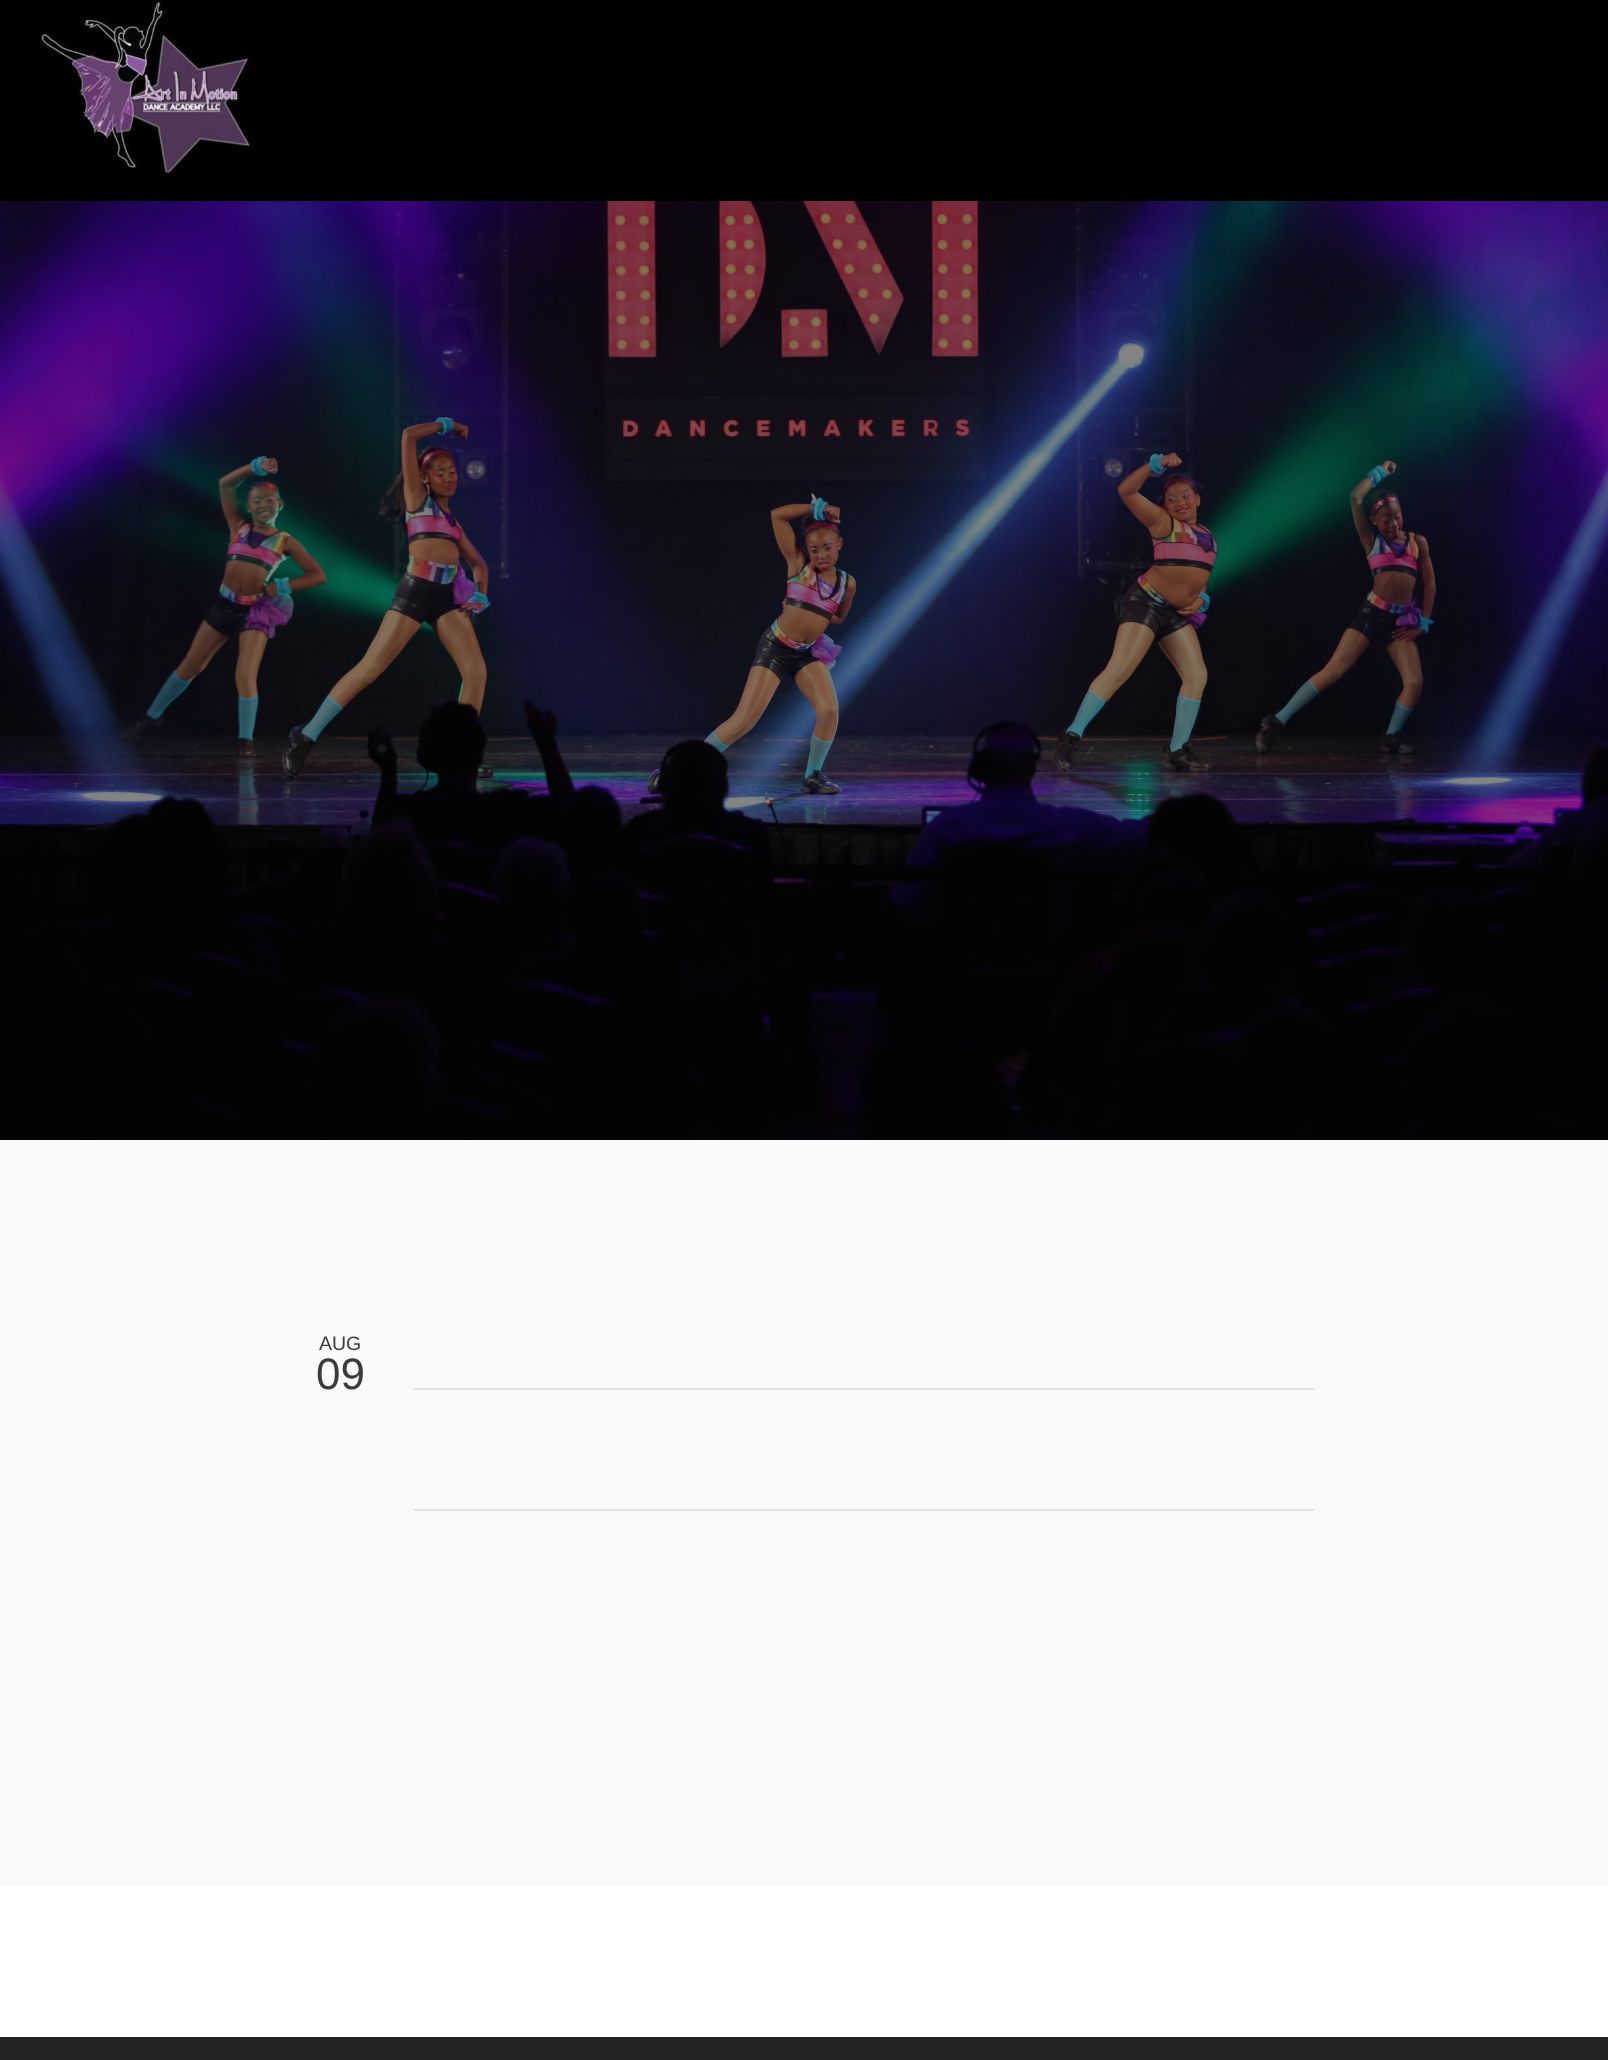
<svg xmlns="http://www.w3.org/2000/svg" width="1608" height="2060">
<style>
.a{font:19.5px Liberation Sans;fill:#3b3b3b}
.b{font:44px Liberation Sans;fill:#3b3b3b}
</style>
<rect width="100%" height="100%" fill="#fff"/>
<path fill="#000" d="M0 0h1608v201H0z"/>
<image href="1.png" x="40" y="0" width="211" height="173"/>
<image href="2.png" x="0" y="201" width="1608" height="939"/>
<path fill="#fafafa" d="M0 1140h1608v746H0z"/>
<path fill="#e4e4e3" d="M414 1388h900v2H414z"/>
<path fill="#e4e4e3" d="M414 1509h900v2H414z"/>
<path fill="#222" d="M0 2037h1608v23H0z"/>
<text class="a" x="319" y="1350">AUG</text>
<text class="b" x="316" y="1389">09</text>
</svg>
